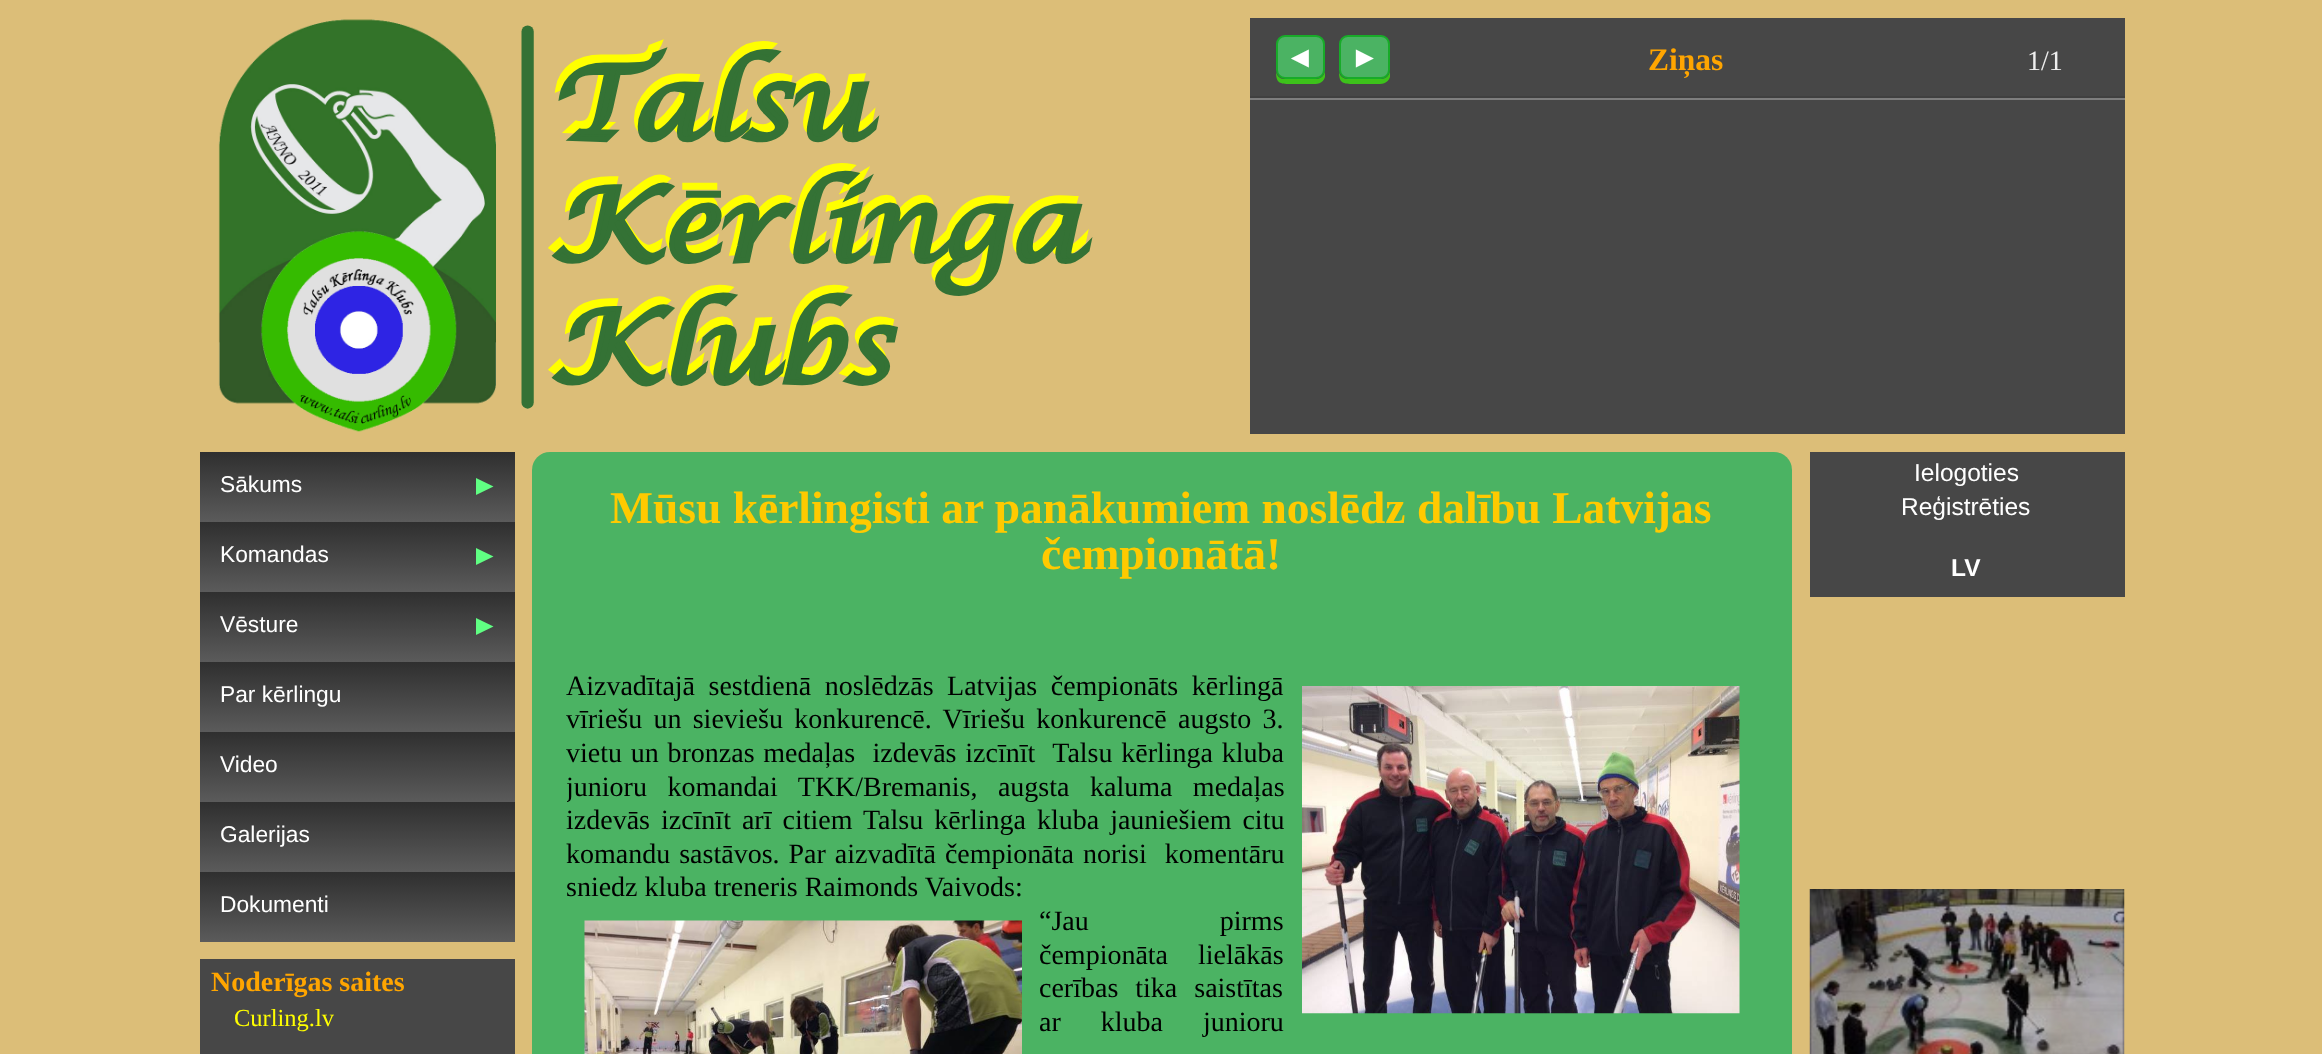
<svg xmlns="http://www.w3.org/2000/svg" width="2322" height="1054">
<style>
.a{font:bold 30px Liberation Sans;fill:#fff}
.b{font:bold 31.5px Liberation Serif;fill:#ffa500}
.c{font:28px Liberation Serif;fill:#eee}
.d{font:22.75px Liberation Sans;fill:#fff}
.e{font:bold 28px Liberation Serif;fill:#ffa500}
.f{font:24.5px Liberation Serif;fill:#ff0}
.g{font:bold 45.5px Liberation Serif;fill:#ffca00}
.h{font:28px Liberation Serif;fill:#000}
.i{font:24.5px Liberation Sans;fill:#fff}
.j{font:bold 24.5px Liberation Sans;fill:#fff}
</style>
<defs>
<linearGradient id="g1" gradientUnits="userSpaceOnUse" x1="357" y1="452" x2="357" y2="522"><stop offset="0" stop-color="#2f2f2f"/><stop offset="1" stop-color="#5b5b5b"/></linearGradient>
<linearGradient id="g2" gradientUnits="userSpaceOnUse" x1="357" y1="522" x2="357" y2="592"><stop offset="0" stop-color="#2f2f2f"/><stop offset="1" stop-color="#5b5b5b"/></linearGradient>
<linearGradient id="g3" gradientUnits="userSpaceOnUse" x1="357" y1="592" x2="357" y2="662"><stop offset="0" stop-color="#2f2f2f"/><stop offset="1" stop-color="#5b5b5b"/></linearGradient>
<linearGradient id="g4" gradientUnits="userSpaceOnUse" x1="357" y1="662" x2="357" y2="732"><stop offset="0" stop-color="#2f2f2f"/><stop offset="1" stop-color="#5b5b5b"/></linearGradient>
<linearGradient id="g5" gradientUnits="userSpaceOnUse" x1="357" y1="732" x2="357" y2="802"><stop offset="0" stop-color="#2f2f2f"/><stop offset="1" stop-color="#5b5b5b"/></linearGradient>
<linearGradient id="g6" gradientUnits="userSpaceOnUse" x1="357" y1="802" x2="357" y2="872"><stop offset="0" stop-color="#2f2f2f"/><stop offset="1" stop-color="#5b5b5b"/></linearGradient>
<linearGradient id="g7" gradientUnits="userSpaceOnUse" x1="357" y1="872" x2="357" y2="942"><stop offset="0" stop-color="#2f2f2f"/><stop offset="1" stop-color="#5b5b5b"/></linearGradient>
<clipPath id="clip1"><path d="M567 651h1190v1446H567z"/></clipPath>
</defs>
<rect width="100%" height="100%" fill="#dcbe78"/>
<image href="1.png" x="218" y="19" width="278" height="413"/>
<image href="2.png" x="521" y="25" width="572" height="384"/>
<path fill="#474747" d="M1250 18h875v416H1250z"/>
<path fill="#3dc21b" d="M1276 72c0 11 4 12 14 12h21c6 0 12 0 14-7v-30v23c0 5-4 9-9 9h-32c-4 0-7-3-8-7z"/>
<rect fill="#4bb363" stroke="#18ab29" stroke-width="2" x="1277" y="36" width="47" height="42" rx="8"/>
<path fill="#3dc21b" d="M1339 72c0 11 4 12 15 12h22c5 0 12 0 14-7v-24v-7v24c0 5-4 9-9 9h-33c-5 0-8-3-9-7z"/>
<rect fill="#4bb363" stroke="#18ab29" stroke-width="2" x="1340" y="36" width="49" height="42" rx="8"/>
<path fill="#404040" d="M1250 96h875v2H1250z"/>
<path fill="#7e7e7e" d="M1250 98h875v2H1250z"/>
<path fill="url(#g1)" d="M200 452h315v70H200z"/>
<path fill="#60ff83" d="M476 495v-17l17.5 8.5z"/>
<path fill="url(#g2)" d="M200 522h315v70H200z"/>
<path fill="#60ff83" d="M476 565v-17l17.5 8.5z"/>
<path fill="url(#g3)" d="M200 592h315v70H200z"/>
<path fill="#60ff83" d="M476 635v-17l17.5 8.5z"/>
<path fill="url(#g4)" d="M200 662h315v70H200z"/>
<path fill="url(#g5)" d="M200 732h315v70H200z"/>
<path fill="url(#g6)" d="M200 802h315v70H200z"/>
<path fill="url(#g7)" d="M200 872h315v70H200z"/>
<path fill="#474747" d="M200 959h315v95H200z"/>
<rect fill="#4bb363" x="532" y="452" width="1260" height="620" rx="18"/>
<image href="3.png" x="1302" y="686" width="438" height="328"/>
<image href="4.png" x="584" y="920" width="438" height="134"/>
<path fill="#474747" d="M1810 452h315v145H1810z"/>
<image href="5.png" x="1809" y="889" width="316" height="165"/>
<text class="a" x="1285" y="67">◄</text>
<text class="a" x="1350" y="67">►</text>
<text class="b" x="1648" y="70">Ziņas</text>
<text class="c" x="2027" y="70">1/1</text>
<text class="d" x="220" y="492">Sākums</text>
<text class="d" x="220" y="562">Komandas</text>
<text class="d" x="220" y="632">Vēsture</text>
<text class="d" x="220" y="702">Par kērlingu</text>
<text class="d" x="220" y="772">Video</text>
<text class="d" x="220" y="842">Galerijas</text>
<text class="d" x="220" y="912">Dokumenti</text>
<text class="e" x="211" y="991">Noderīgas saites</text>
<text class="f" x="234" y="1026">Curling.lv</text>
<text class="g" x="610" y="523">Mūsu kērlingisti ar panākumiem noslēdz dalību Latvijas</text>
<text class="g" x="1041" y="569">čempionātā!</text>
<text class="h" x="566" y="695" word-spacing="6.5">Aizvadītajā sestdienā noslēdzās Latvijas čempionāts kērlingā</text>
<text class="h" x="566" y="728" word-spacing="4.25">vīriešu un sieviešu konkurencē. Vīriešu konkurencē augsto 3.</text>
<text class="h" xml:space="preserve" x="566" y="762" word-spacing="1.75">vietu un bronzas medaļas  izdevās izcīnīt  Talsu kērlinga kluba</text>
<g clip-path="url(#clip1)">
<text class="h" x="566" y="796" word-spacing="13.5">junioru komandai TKK/Bremanis, augsta kaluma medaļas</text>
</g>
<text class="h" x="566" y="829" word-spacing="4">izdevās izcīnīt arī citiem Talsu kērlinga kluba jauniešiem citu</text>
<text class="h" xml:space="preserve" x="566" y="863" word-spacing="2">komandu sastāvos. Par aizvadītā čempionāta norisi  komentāru</text>
<text class="h" x="566" y="896">sniedz kluba treneris Raimonds Vaivods:</text>
<text class="h" x="1039" y="930" word-spacing="124">“Jau pirms</text>
<text class="h" x="1039" y="964" word-spacing="23">čempionāta lielākās</text>
<text class="h" x="1039" y="997" word-spacing="10">cerības tika saistītas</text>
<text class="h" x="1039" y="1031" word-spacing="33">ar kluba junioru</text>
<text class="i" x="1914" y="481">Ielogoties</text>
<text class="i" x="1901" y="515">Reģistrēties</text>
<text class="j" x="1951" y="576">LV</text>
</svg>
